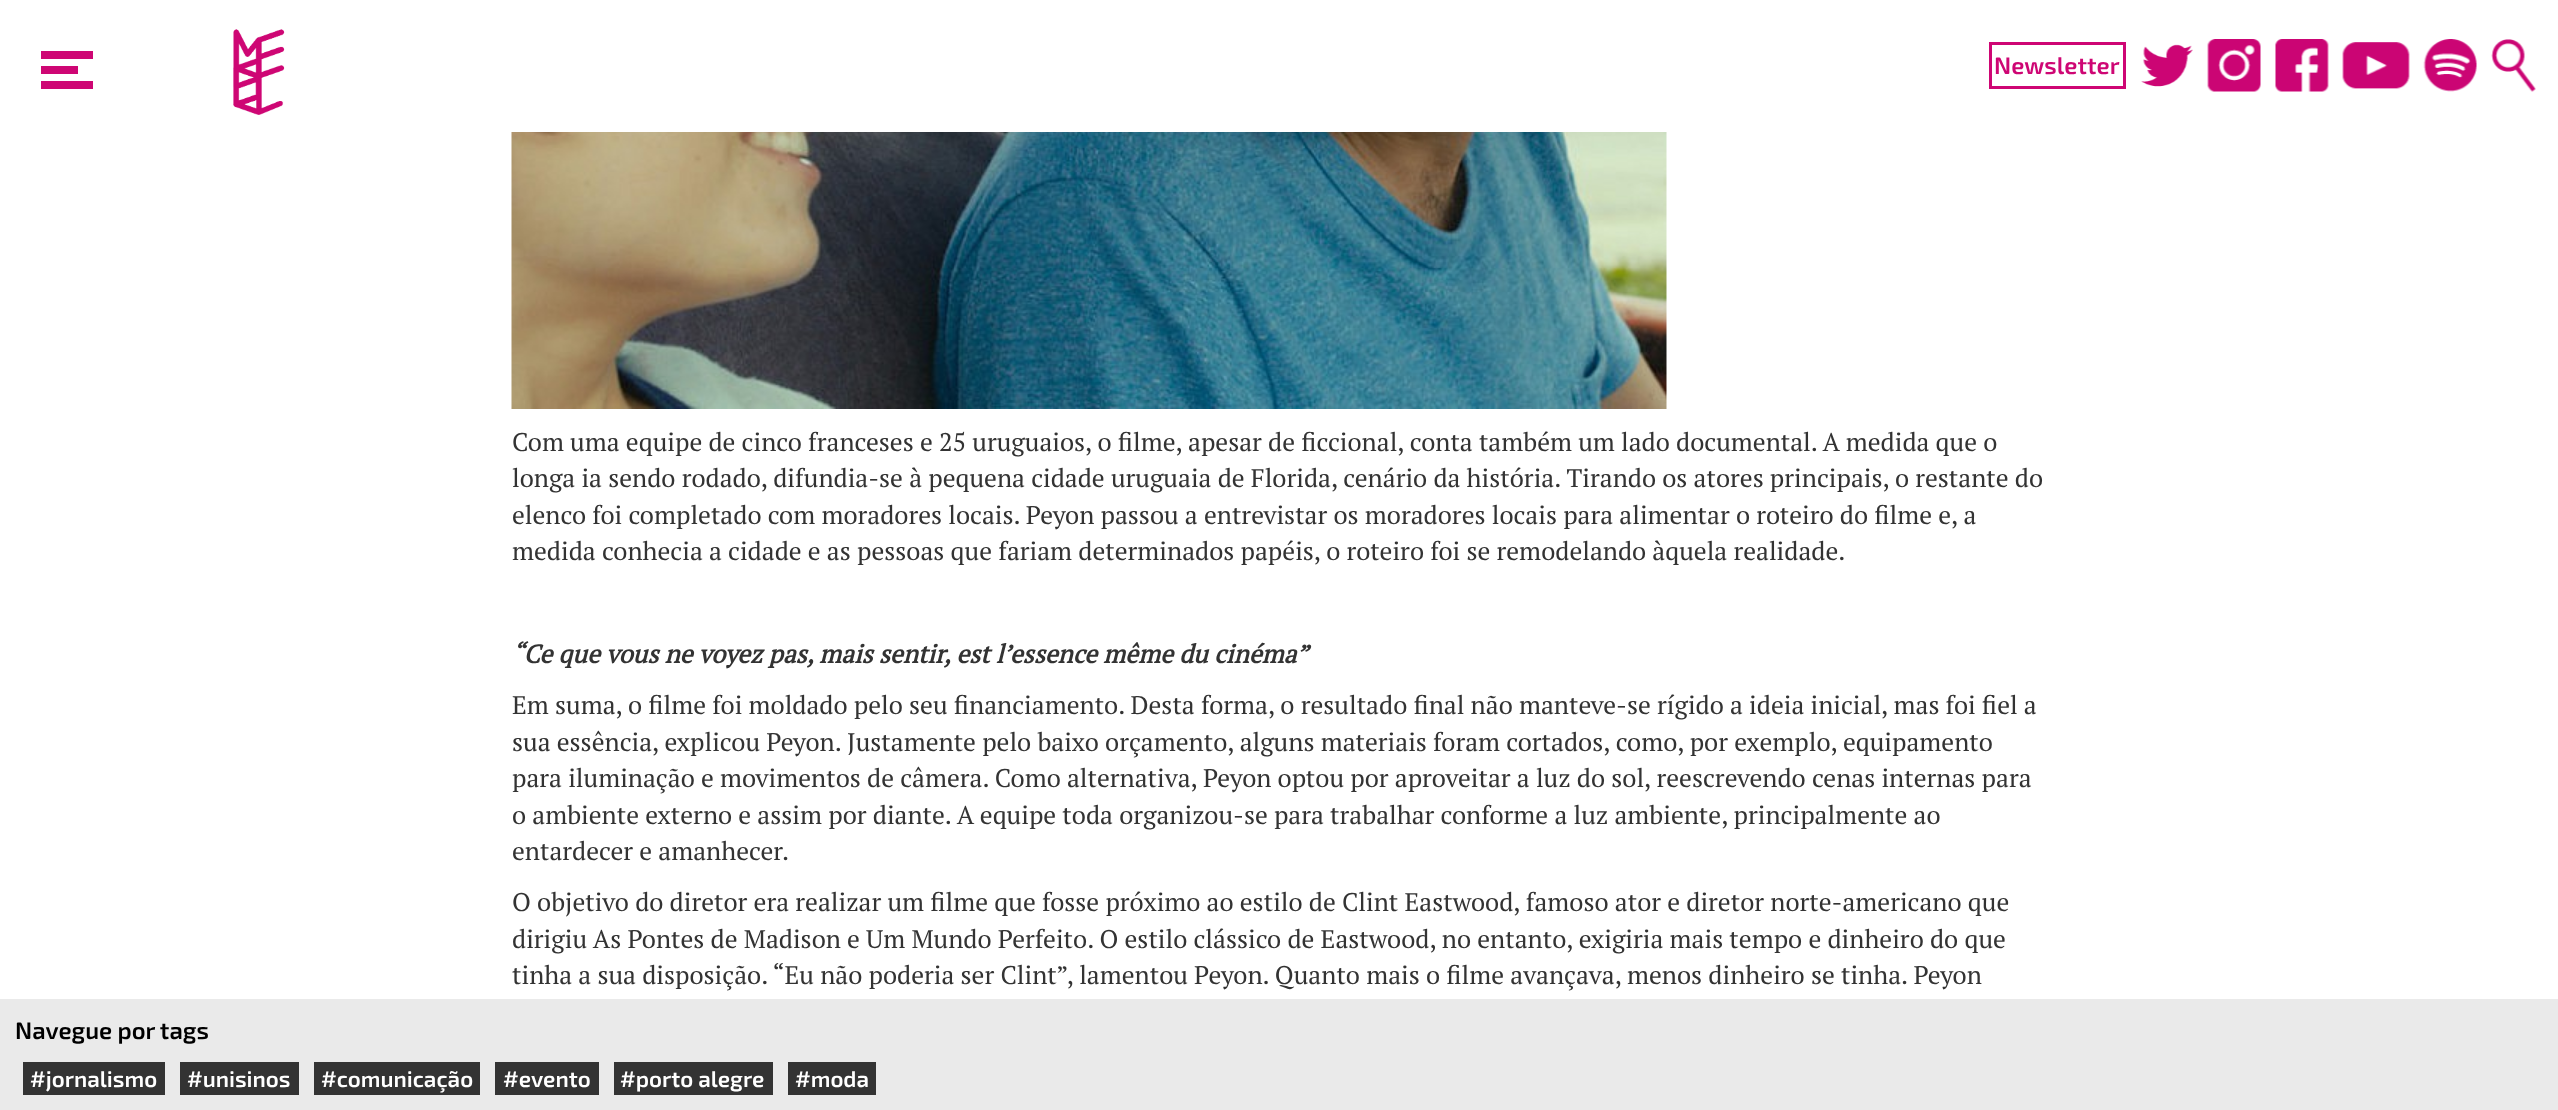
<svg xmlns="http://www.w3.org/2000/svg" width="2558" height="1110">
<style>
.a{font:600 24px 'Exo 2';fill:#ce0674}
.b{font:25.5px PT Serif;fill:#333}
.c{font:italic bold 25.5px PT Serif;fill:#333}
.d{font:600 24px 'Exo 2';fill:#000}
.e{font:600 22.5px 'Exo 2';fill:#fff}
</style>
<rect width="100%" height="100%" fill="#fff"/>
<path fill="#ce0674" d="M41 66h37v8H41z"/>
<path fill="#ce0674" d="M41 51h52v8H41z"/>
<path fill="#ce0674" d="M41 81h52v8H41z"/>
<image href="1.png" x="233" y="29" width="52" height="86"/>
<path fill="none" stroke="#ce0674" stroke-width="3" d="M1990.5 43.5h134v44H1990.5z"/>
<image href="2.png" x="2141" y="44" width="52" height="43"/>
<image href="3.png" x="2207" y="39" width="54" height="53"/>
<image href="4.png" x="2275" y="39" width="54" height="53"/>
<image href="5.png" x="2342" y="42" width="68" height="47"/>
<image href="6.png" x="2423" y="39" width="54" height="53"/>
<image href="7.png" x="2491" y="39" width="45" height="53"/>
<image href="8.png" x="511" y="132" width="1156" height="277"/>
<path fill="#eaeaea" d="M0 999h2558v111H0z"/>
<path fill="#333" d="M23 1062h142v33H23z"/>
<path fill="#333" d="M180 1062h119v33H180z"/>
<path fill="#333" d="M314 1062h166v33H314z"/>
<path fill="#333" d="M495 1062h104v33H495z"/>
<path fill="#333" d="M614 1062h159v33H614z"/>
<path fill="#333" d="M788 1062h88v33H788z"/>
<text class="a" x="1994" y="74">Newsletter</text>
<text class="b" x="512" y="451">Com uma equipe de cinco franceses e 25 uruguaios, o filme, apesar de ficcional, conta também um lado documental. A medida que o</text>
<text class="b" x="512" y="487">longa ia sendo rodado, difundia-se à pequena cidade uruguaia de Florida, cenário da história. Tirando os atores principais, o restante do</text>
<text class="b" x="512" y="524">elenco foi completado com moradores locais. Peyon passou a entrevistar os moradores locais para alimentar o roteiro do filme e, a</text>
<text class="b" x="512" y="560">medida conhecia a cidade e as pessoas que fariam determinados papéis, o roteiro foi se remodelando àquela realidade.</text>
<text class="c" x="512" y="663">“Ce que vous ne voyez pas, mais sentir, est l’essence même du cinéma”</text>
<text class="b" x="512" y="714">Em suma, o filme foi moldado pelo seu financiamento. Desta forma, o resultado final não manteve-se rígido a ideia inicial, mas foi fiel a</text>
<text class="b" x="512" y="751">sua essência, explicou Peyon. Justamente pelo baixo orçamento, alguns materiais foram cortados, como, por exemplo, equipamento</text>
<text class="b" x="512" y="787">para iluminação e movimentos de câmera. Como alternativa, Peyon optou por aproveitar a luz do sol, reescrevendo cenas internas para</text>
<text class="b" x="512" y="824">o ambiente externo e assim por diante. A equipe toda organizou-se para trabalhar conforme a luz ambiente, principalmente ao</text>
<text class="b" x="512" y="860">entardecer e amanhecer.</text>
<text class="b" x="512" y="911">O objetivo do diretor era realizar um filme que fosse próximo ao estilo de Clint Eastwood, famoso ator e diretor norte-americano que</text>
<text class="b" x="512" y="948">dirigiu As Pontes de Madison e Um Mundo Perfeito. O estilo clássico de Eastwood, no entanto, exigiria mais tempo e dinheiro do que</text>
<text class="b" x="512" y="984">tinha a sua disposição. “Eu não poderia ser Clint”, lamentou Peyon. Quanto mais o filme avançava, menos dinheiro se tinha. Peyon</text>
<text class="d" x="15" y="1039">Navegue por tags</text>
<text class="e" x="30" y="1087">#jornalismo</text>
<text class="e" x="187" y="1087">#unisinos</text>
<text class="e" x="321" y="1087">#comunicação</text>
<text class="e" x="503" y="1087">#evento</text>
<text class="e" x="620" y="1087">#porto alegre</text>
<text class="e" x="795" y="1087">#moda</text>
</svg>
